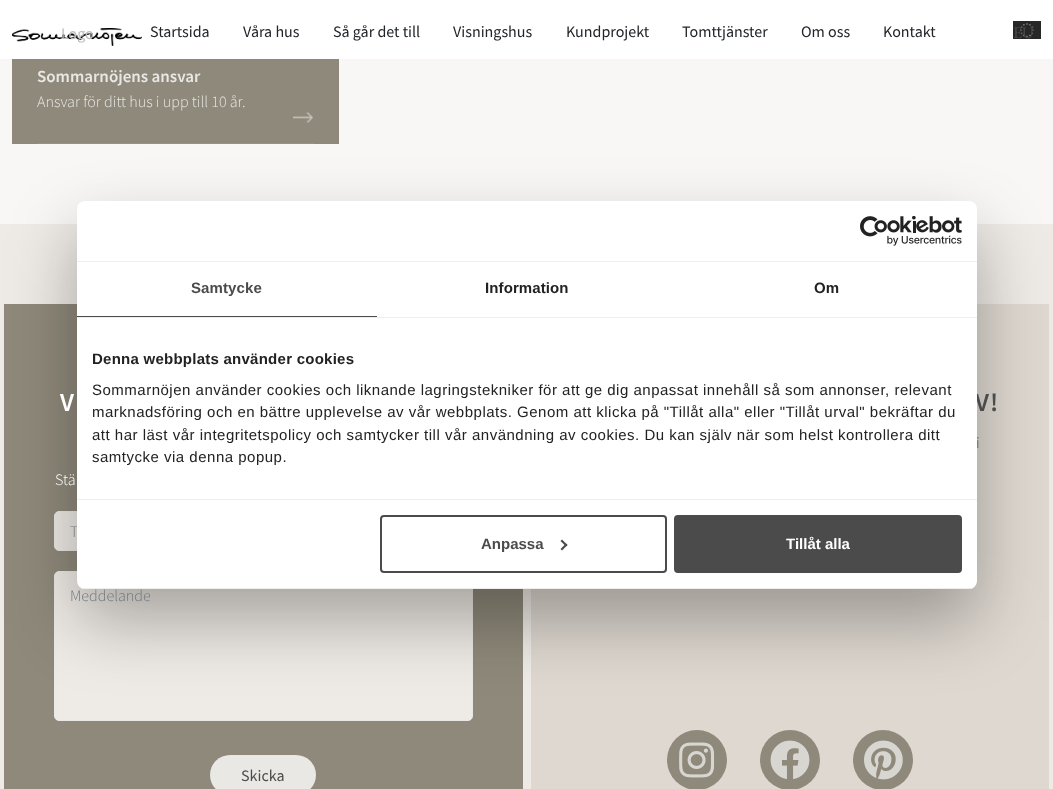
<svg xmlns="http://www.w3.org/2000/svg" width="1053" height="789">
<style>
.a{font:16px Source Sans Pro;fill:#bcbcbc}
.b{font:16px Source Sans Pro;fill:#212529}
.c{font:16px EB Garamond;fill:#4b4b4b}
.d{font:600 17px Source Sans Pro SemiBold;fill:#e9e8e5}
.e{font:300 16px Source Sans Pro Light;fill:#e9e8e5}
.f{font:600 26px Source Sans Pro SemiBold;letter-spacing:1px;fill:#fff}
.g{font:300 16px Source Sans Pro Light;fill:#fff}
.h{font:300 16px Source Sans Pro Light;fill:#6c757d}
.i{font:16px Source Sans Pro;fill:#4b4b4b}
.j{font:600 26px Source Sans Pro SemiBold;letter-spacing:1px;fill:#4b4b4b}
.k{font:bold 15px Liberation Sans;fill:#fff}
.l{font:bold 15px Liberation Sans;fill:#4b4b4b}
.m{font:15px Liberation Sans;letter-spacing:0.5px;fill:#222}
.n{font:bold 15px Liberation Sans;letter-spacing:0.25px;fill:#222}
.o{font:bold 15px Liberation Sans;letter-spacing:0.1px;fill:#222}
.p{font:bold 15px Liberation Sans;letter-spacing:0.1px;fill:#4b4b4b}
.q{font:300 16px Source Sans Pro Light;fill:#4b4b4b}
</style>
<defs>
<clipPath id="clip1"><rect x="77" y="201" width="900" height="388" rx="8"/></clipPath>
</defs>
<rect width="100%" height="100%" fill="#f8f7f5"/>
<path fill="#fff" d="M0 0h1053v59H0z"/>
<image href="1.png" x="12" y="28" width="130" height="18"/>
<image href="2.png" x="1013" y="21" width="28" height="18"/>
<path fill="#8e897a" d="M12 59h327v85H12z"/>
<path fill="#989386" d="M37 143h277v1H37z"/>
<image href="3.png" x="293" y="112" width="20" height="11"/>
<path fill="#eeeae5" d="M0 224h1053v565H0z"/>
<path fill="#8e897a" d="M4 304h519v485H4z"/>
<rect fill="#eeeae5" stroke="#e9e8e5" x="54.5" y="511.5" width="200" height="39" rx="4.5"/>
<rect fill="#eeeae5" stroke="#e9e8e5" x="54.5" y="571.5" width="418" height="149" rx="4.5"/>
<path fill="#ded8d0" d="M531 304h518v485H531z"/>
<rect fill="#0000004d" filter="blur(34px)" x="77" y="233" width="900" height="388" rx="8"/>
<rect fill="#e9e8e5" x="210" y="755" width="106" height="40" rx="20"/>
<circle fill="#8e897a" cx="697" cy="760" r="30"/>
<image href="5.png" x="679" y="742" width="36" height="36"/>
<circle fill="#8e897a" cx="790" cy="760" r="30"/>
<image href="6.png" x="770" y="740" width="40" height="39"/>
<circle fill="#8e897a" cx="883" cy="760" r="30"/>
<image href="7.png" x="864" y="740" width="39" height="40"/>
<text class="a" x="61" y="39">Logo</text>
<text class="b" x="150" y="37">Startsida</text>
<text class="b" x="243" y="37">Våra hus</text>
<text class="b" x="333" y="37">Så går det till</text>
<text class="b" x="453" y="37">Visningshus</text>
<text class="b" x="566" y="37">Kundprojekt</text>
<text class="b" x="682" y="37">Tomttjänster</text>
<text class="b" x="801" y="37">Om oss</text>
<text class="b" x="883" y="37">Kontakt</text>
<text class="c" x="1013" y="38">EU</text>
<text class="d" x="37" y="82">Sommarnöjens ansvar</text>
<text class="e" x="37" y="107">Ansvar för ditt hus i upp till 10 år.</text>
<text class="f" x="60" y="411">V</text>
<text class="g" x="55" y="485">Stä</text>
<text class="h" x="70" y="537">T</text>
<text class="h" x="70" y="601">Meddelande</text>
<text class="i" x="241" y="781">Skicka</text>
<text class="j" x="975" y="411">V!</text>
<rect fill="#fff" x="77" y="201" width="900" height="388" rx="8"/>
<rect fill="none" stroke="#4b4b4b" stroke-width="2" x="381" y="516" width="285" height="56" rx="3"/>
<path fill="#4b4b4b" d="M562 539.5l5.5 5.5l-1.5 1.5l-5.5-5.5z"/>
<path fill="#4b4b4b" d="M566 543.5l1.5 1.5l-5.5 5.5l-1.5-1.5z"/>
<rect fill="#4b4b4b" stroke="#4b4b4b" stroke-width="2" x="675" y="516" width="286" height="56" rx="3"/>
<text class="k" x="786" y="549">Tillåt alla</text>
<text class="l" x="481" y="549">Anpassa</text>
<g clip-path="url(#clip1)">
<path fill="#eee" d="M77 588h900v1H77z"/>
</g>
<text class="m" x="92" y="462">samtycke via denna popup.</text>
<text class="m" x="92" y="440">att har läst vår integritetspolicy och samtycker till vår användning av cookies. Du kan själv när som helst kontrollera ditt</text>
<text class="m" x="92" y="417">marknadsföring och en bättre upplevelse av vår webbplats. Genom att klicka på "Tillåt alla" eller "Tillåt urval" bekräftar du</text>
<text class="m" x="92" y="395">Sommarnöjen använder cookies och liknande lagringstekniker för att ge dig anpassat innehåll så som annonser, relevant</text>
<text class="n" x="92" y="364">Denna webbplats använder cookies</text>
<path fill="#eee" d="M77 499h900v1H77z"/>
<text class="o" x="814" y="293">Om</text>
<text class="o" x="485" y="293">Information</text>
<text class="p" x="191" y="293">Samtycke</text>
<path fill="#4b4b4b" d="M77 316h300v1H77z"/>
<path fill="#eee" d="M77 317h900v1H77z"/>
<image href="4.png" x="860" y="216" width="102" height="30"/>
<path fill="#eee" d="M77 261h900v1H77z"/>
<text class="q" x="976" y="448">i</text>
</svg>
